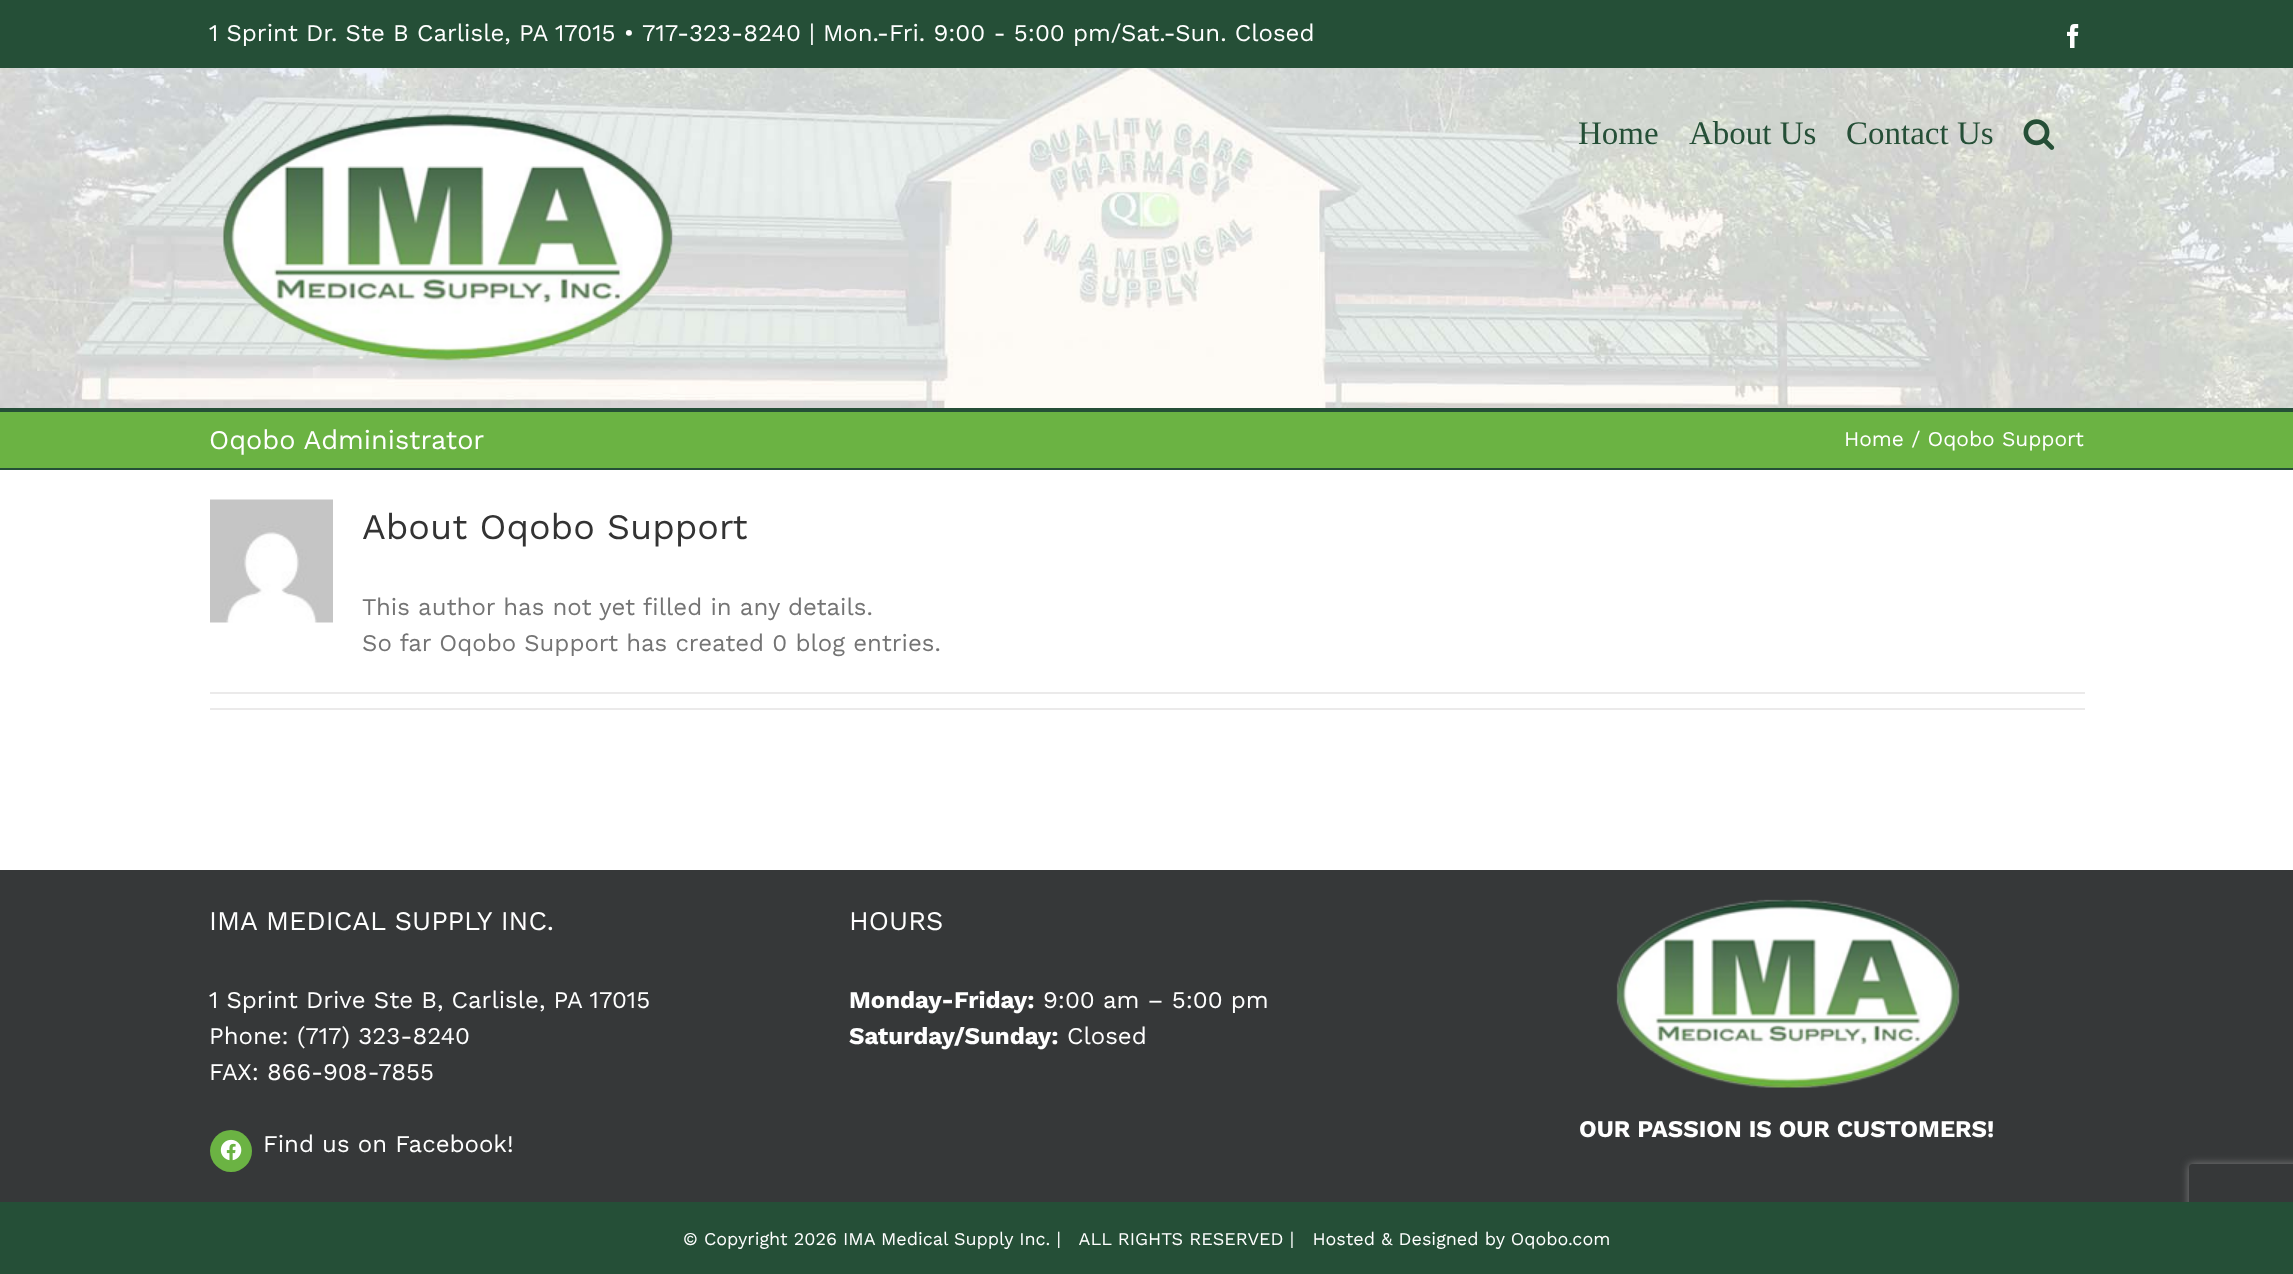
<svg xmlns="http://www.w3.org/2000/svg" width="2293" height="1274">
<style>
.a{font:24px Work Sans;fill:#fff}
.b{font:33px Liberation Serif;fill:#254f37}
.c{font:27px Work Sans;fill:#fff}
.d{font:21px Work Sans;fill:#fff}
.e{font:36px Work Sans;fill:#333}
.f{font:24px Work Sans;fill:#747474}
.g{font:bold 24px Work Sans;fill:#fff}
.h{font:18px Work Sans;fill:#fff}
</style>
<defs>
<clipPath id="clip1"><path d="M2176 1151h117v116h-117zm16 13h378c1.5 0 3 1.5 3 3v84c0 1.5-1.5 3-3 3h-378c-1.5 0-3-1.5-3-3v-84c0-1.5 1.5-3 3-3z" clip-rule="evenodd"/></clipPath>
</defs>
<rect width="100%" height="100%" fill="#fff"/>
<path fill="#254f37" d="M0 0h2293v68H0z"/>
<image href="1.png" x="2067" y="24" width="12" height="24"/>
<image href="2.png" x="0" y="68" width="2293" height="340"/>
<image href="3.png" x="222" y="114" width="451" height="247"/>
<image href="4.png" x="2023" y="119" width="32" height="31"/>
<path fill="#6bb343" d="M0 412h2293v56H0z"/>
<path fill="#254f37" d="M0 408h2293v4H0z"/>
<path fill="#254f37" d="M0 468h2293v2H0z"/>
<image href="5.png" x="210" y="499" width="123" height="124"/>
<path fill="#ebeaea" d="M210 692h1875v2H210z"/>
<path fill="#ebeaea" d="M210 708h1875v2H210z"/>
<path fill="#363839" d="M0 870h2293v332H0z"/>
<circle fill="#6bb343" cx="231" cy="1151" r="21"/>
<image href="6.png" x="220" y="1139" width="22" height="22"/>
<image href="7.png" x="1616" y="899" width="344" height="189"/>
<g clip-path="url(#clip1)">
<rect fill="#808080" filter="blur(4px)" x="2189" y="1164" width="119" height="90" rx="3"/>
</g>
<path fill="#254f37" d="M0 1202h2293v72H0z"/>
<text class="a" x="209" y="41">1 Sprint Dr. Ste B Carlisle, PA 17015 •</text>
<text class="a" x="642" y="41">717-323-8240 | Mon.-Fri. 9:00 - 5:00 pm/Sat.-Sun. Closed</text>
<text class="b" x="1578" y="144">Home</text>
<text class="b" x="1689" y="144">About Us</text>
<text class="b" x="1846" y="144">Contact Us</text>
<text class="c" x="209" y="449">Oqobo Administrator</text>
<text class="d" x="1844" y="446">Home / Oqobo Support</text>
<text class="e" x="362" y="539">About Oqobo Support</text>
<text class="f" x="362" y="615">This author has not yet filled in any details.</text>
<text class="f" x="362" y="651">So far Oqobo Support has created 0 blog entries.</text>
<text class="c" x="209" y="930">IMA MEDICAL SUPPLY INC.</text>
<text class="a" x="209" y="1008">1 Sprint Drive Ste B, Carlisle, PA 17015</text>
<text class="a" x="209" y="1044">Phone: (717) 323-8240</text>
<text class="a" x="209" y="1080">FAX: 866-908-7855</text>
<text class="a" x="263" y="1152">Find us on Facebook!</text>
<text class="c" x="849" y="930">HOURS</text>
<text class="g" x="849" y="1008">Monday-Friday:</text>
<text class="a" x="1043" y="1008">9:00 am – 5:00 pm</text>
<text class="g" x="849" y="1044">Saturday/Sunday:</text>
<text class="a" x="1067" y="1044">Closed</text>
<text class="g" x="1579" y="1137">OUR PASSION IS OUR CUSTOMERS!</text>
<text class="h" xml:space="preserve" x="683" y="1245">© Copyright 2026 IMA Medical Supply Inc. |   ALL RIGHTS RESERVED |   Hosted &amp; Designed by Oqobo.com</text>
</svg>
